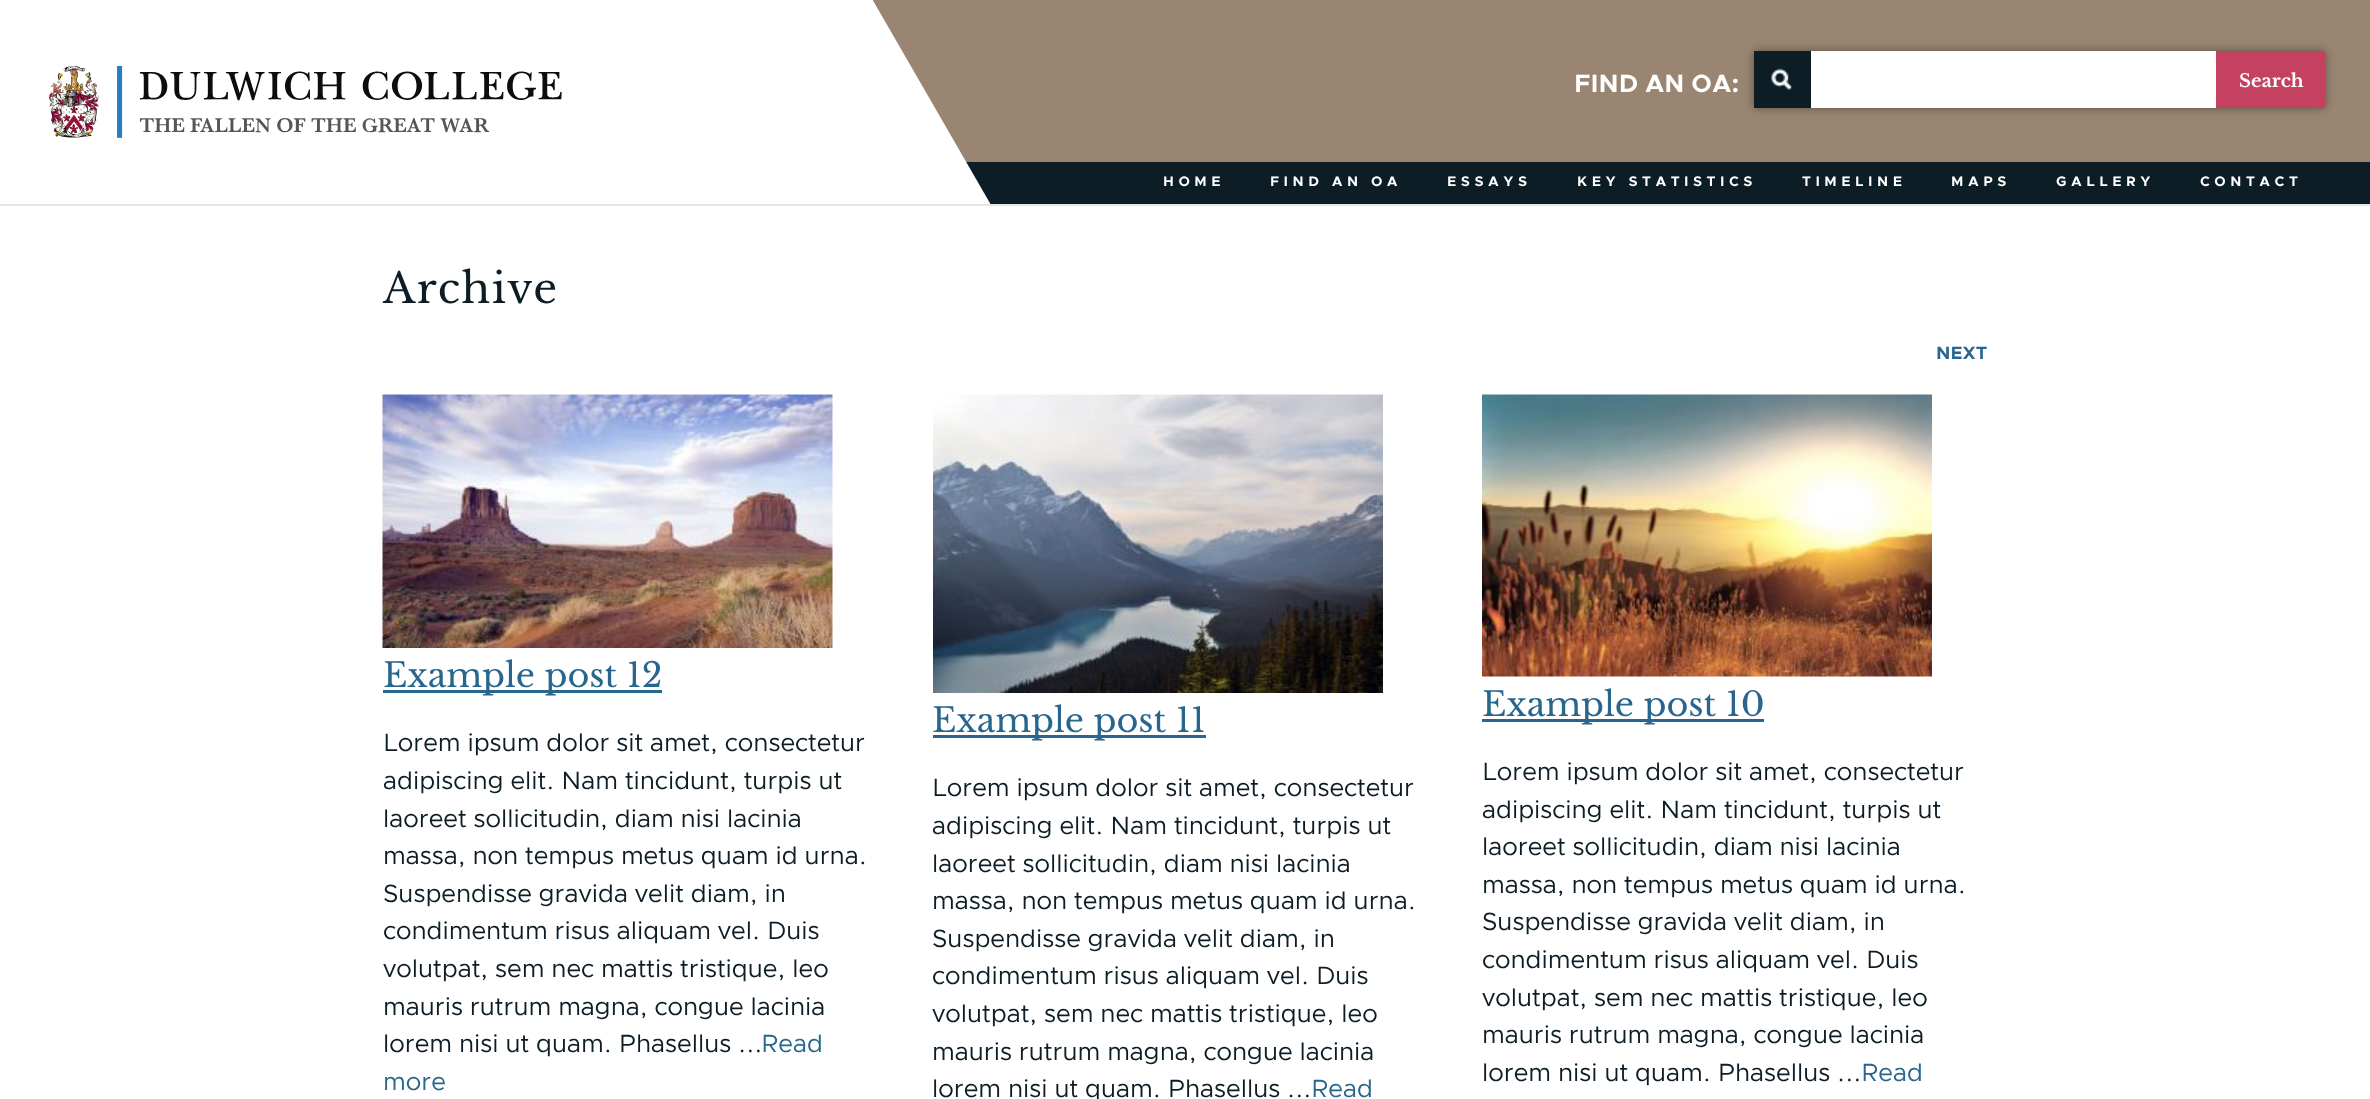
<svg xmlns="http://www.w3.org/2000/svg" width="2370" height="1099">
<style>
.a{font:bold 25.1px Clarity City;fill:#fff}
.b{font:bold 18px Libre Baskerville;fill:#fff}
.c{font:bold 13.9px Clarity City;letter-spacing:4.5px;fill:#fff}
.d{font:41.75px Libre Baskerville;letter-spacing:1.5px;fill:#0d1d25}
.e{font:bold 18px Clarity City;fill:#29668d}
.f{font:33.5px Libre Baskerville;fill:#29668d}
.g{font:25.1px Clarity City;fill:#0d1d25}
.h{font:25.1px Clarity City;fill:#29668d}
</style>
<defs>
<clipPath id="clip1"><path d="M23 0h2325v204H23z"/></clipPath>
</defs>
<rect width="100%" height="100%" fill="#fff"/>
<path fill="#998572" d="M872 0h1498v162H872z"/>
<path fill="#e7e6e6" d="M0 204h2370v2H0z"/>
<path fill="#0d1d25" d="M966 162h1404v42H966z"/>
<g clip-path="url(#clip1)">
<path fill="#fff" d="M-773 637l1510-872l1500 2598l-1510 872z"/>
</g>
<image href="1.png" x="49" y="66" width="513" height="72"/>
<path fill="#00000066" filter="blur(5px)" d="M1754 51h571v57H1754z"/>
<path fill="#0d1d25" d="M1754 51h57v57H1754z"/>
<image href="2.png" x="1771" y="68" width="21" height="22"/>
<path fill="#fff" d="M1811 51h405v57H1811z"/>
<path fill="#c54161" d="M2216 51h109v57H2216z"/>
<image href="3.png" x="382" y="394" width="451" height="254"/>
<path fill="#29668d" d="M383 690h279v3H383z"/>
<image href="4.png" x="933" y="394" width="450" height="299"/>
<path fill="#29668d" d="M933 735h273v3H933z"/>
<image href="5.png" x="1482" y="394" width="450" height="283"/>
<path fill="#29668d" d="M1482 719h282v3H1482z"/>
<text class="a" x="1574" y="92">FIND AN OA:</text>
<text class="b" x="2239" y="87">Search</text>
<text class="c" x="1163" y="186">HOME</text>
<text class="c" x="1270" y="186">FIND AN OA</text>
<text class="c" x="1447" y="186">ESSAYS</text>
<text class="c" x="1577" y="186">KEY STATISTICS</text>
<text class="c" x="1802" y="186">TIMELINE</text>
<text class="c" x="1951" y="186">MAPS</text>
<text class="c" x="2056" y="186">GALLERY</text>
<text class="c" x="2200" y="186">CONTACT</text>
<text class="d" x="383" y="303">Archive</text>
<text class="e" x="1936" y="359">NEXT</text>
<text class="f" x="383" y="687">Example post 12</text>
<text class="g" x="383" y="751">Lorem ipsum dolor sit amet, consectetur</text>
<text class="g" x="383" y="789">adipiscing elit. Nam tincidunt, turpis ut</text>
<text class="g" x="383" y="827">laoreet sollicitudin, diam nisi lacinia</text>
<text class="g" x="383" y="864">massa, non tempus metus quam id urna.</text>
<text class="g" x="383" y="902">Suspendisse gravida velit diam, in</text>
<text class="g" x="383" y="939">condimentum risus aliquam vel. Duis</text>
<text class="g" x="383" y="977">volutpat, sem nec mattis tristique, leo</text>
<text class="g" x="383" y="1015">mauris rutrum magna, congue lacinia</text>
<text class="g" x="383" y="1052">lorem nisi ut quam. Phasellus ...</text>
<text class="h" x="761" y="1052">Read</text>
<text class="h" x="383" y="1090">more</text>
<text class="f" x="932" y="732">Example post 11</text>
<text class="g" x="932" y="796">Lorem ipsum dolor sit amet, consectetur</text>
<text class="g" x="932" y="834">adipiscing elit. Nam tincidunt, turpis ut</text>
<text class="g" x="932" y="872">laoreet sollicitudin, diam nisi lacinia</text>
<text class="g" x="932" y="909">massa, non tempus metus quam id urna.</text>
<text class="g" x="932" y="947">Suspendisse gravida velit diam, in</text>
<text class="g" x="932" y="984">condimentum risus aliquam vel. Duis</text>
<text class="g" x="932" y="1022">volutpat, sem nec mattis tristique, leo</text>
<text class="g" x="932" y="1060">mauris rutrum magna, congue lacinia</text>
<text class="g" x="932" y="1097">lorem nisi ut quam. Phasellus ...</text>
<text class="h" x="1311" y="1097">Read</text>
<text class="f" x="1482" y="716">Example post 10</text>
<text class="g" x="1482" y="780">Lorem ipsum dolor sit amet, consectetur</text>
<text class="g" x="1482" y="818">adipiscing elit. Nam tincidunt, turpis ut</text>
<text class="g" x="1482" y="855">laoreet sollicitudin, diam nisi lacinia</text>
<text class="g" x="1482" y="893">massa, non tempus metus quam id urna.</text>
<text class="g" x="1482" y="930">Suspendisse gravida velit diam, in</text>
<text class="g" x="1482" y="968">condimentum risus aliquam vel. Duis</text>
<text class="g" x="1482" y="1006">volutpat, sem nec mattis tristique, leo</text>
<text class="g" x="1482" y="1043">mauris rutrum magna, congue lacinia</text>
<text class="g" x="1482" y="1081">lorem nisi ut quam. Phasellus ...</text>
<text class="h" x="1861" y="1081">Read</text>
</svg>
